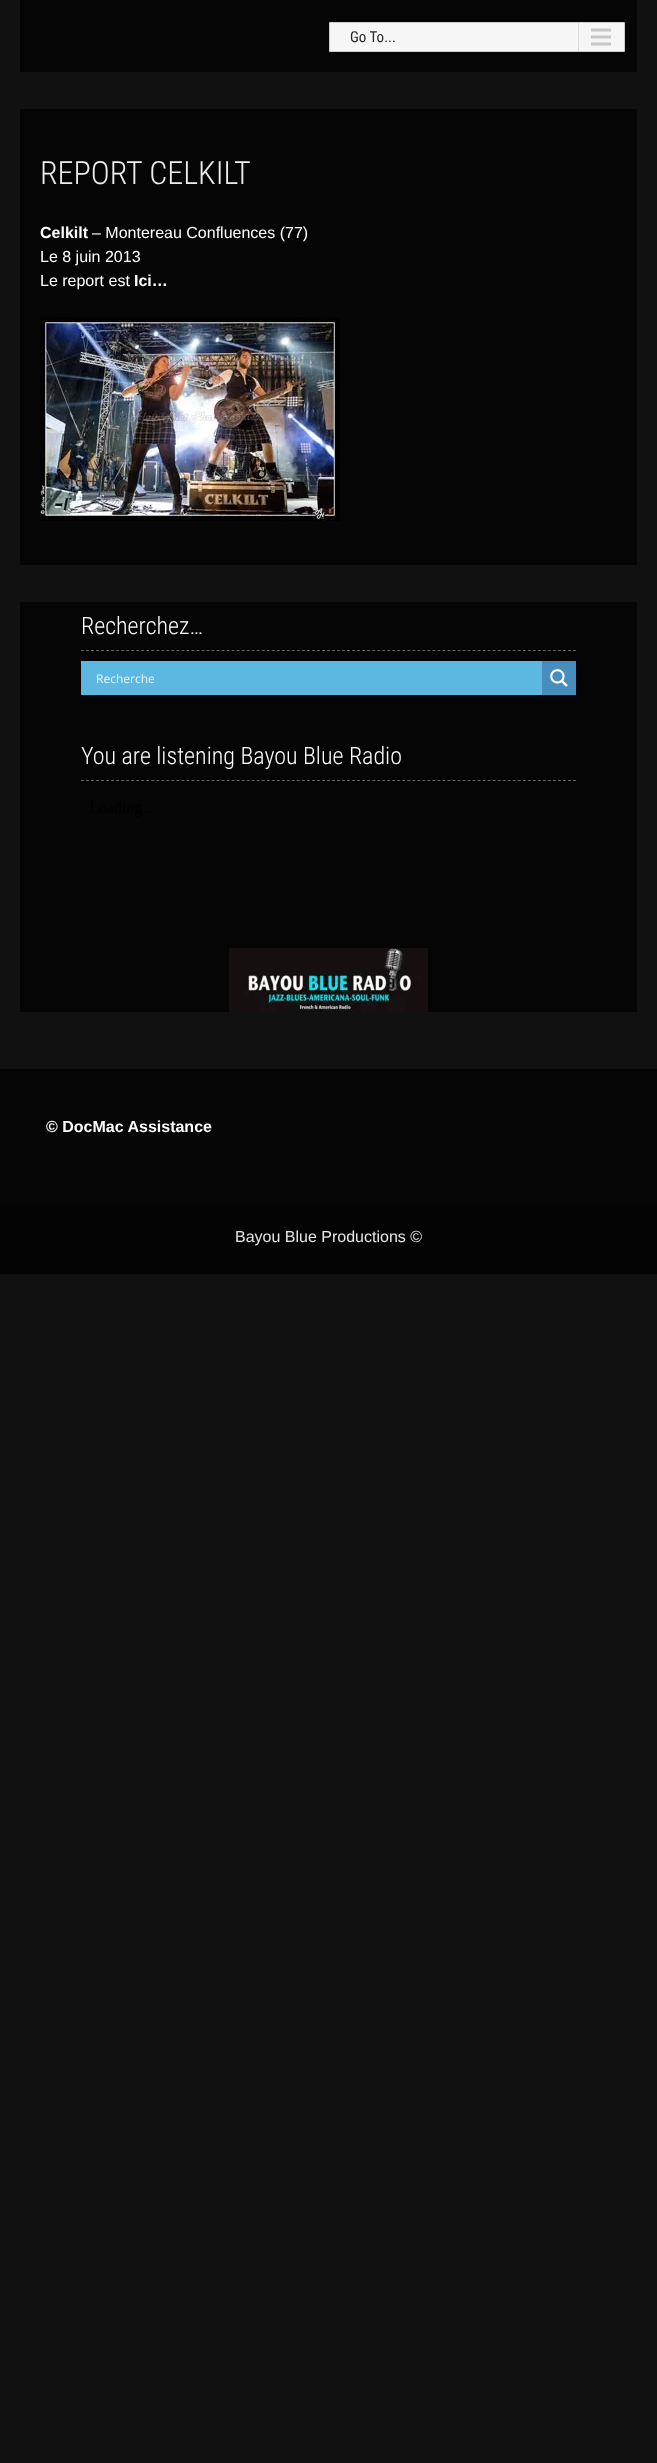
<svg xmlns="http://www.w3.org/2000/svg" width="657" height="2463">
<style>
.a{font:15px Roboto Condensed;fill:#242424}
.b{font:300 32px Roboto Condensed;fill:#eeeded}
.c{font:bold 16px Liberation Sans;fill:#fff}
.d{font:16px Liberation Sans;fill:#fff}
.e{font:300 24px Roboto Condensed;fill:#fff}
.f{font:12px Open Sans;fill:#e7f4fb}
.g{font:16px Liberation Sans;fill:#e7e7e7}
</style>
<rect width="100%" height="100%" fill="#111"/>
<path fill="#050505" d="M20 0h617v72H20z"/>
<path fill="#f6f6f6" d="M330 23h294v28H330z"/>
<image href="1.png" x="578" y="23" width="33" height="28"/>
<path fill="none" stroke="#ccc" d="M329.5 22.5h295v29H329.5z"/>
<path fill="#050505" d="M20 109h617v456H20z"/>
<image href="2.png" x="40" y="317" width="300" height="204"/>
<path fill="#050505" d="M20 602h617v410H20z"/>
<path fill="none" stroke="#606266" stroke-dasharray="3 2.02" d="M81 650.5h495"/>
<path fill="#5cb7e1" d="M81 661h461v34H81z"/>
<path fill="#468ebe" d="M542 661h34v34H542z"/>
<image href="3.png" x="550" y="669" width="18" height="18"/>
<path fill="none" stroke="#606266" stroke-dasharray="3 2.02" d="M81 780.5h495"/>
<image href="4.png" x="91" y="801" width="62" height="16"/>
<image href="5.png" x="229" y="948" width="199" height="64"/>
<path fill="#050505" d="M0 1069h657v136H0z"/>
<path fill="#040404" d="M0 1205h657v69H0z"/>
<text class="a" x="350" y="42">Go To...</text>
<text class="b" x="40" y="184">REPORT CELKILT</text>
<text class="c" x="40" y="238">Celkilt</text>
<text class="d" x="92" y="238">– Montereau Confluences (77)</text>
<text class="d" x="40" y="262">Le 8 juin 2013</text>
<text class="d" x="40" y="286">Le report est</text>
<text class="c" x="134" y="286">Ici…</text>
<text class="e" x="81" y="634">Recherchez…</text>
<text class="f" x="96" y="683">Recherche</text>
<text class="e" x="81" y="764">You are listening Bayou Blue Radio</text>
<text class="c" x="46" y="1132">© DocMac Assistance</text>
<text class="g" x="235" y="1242">Bayou Blue Productions ©</text>
</svg>
